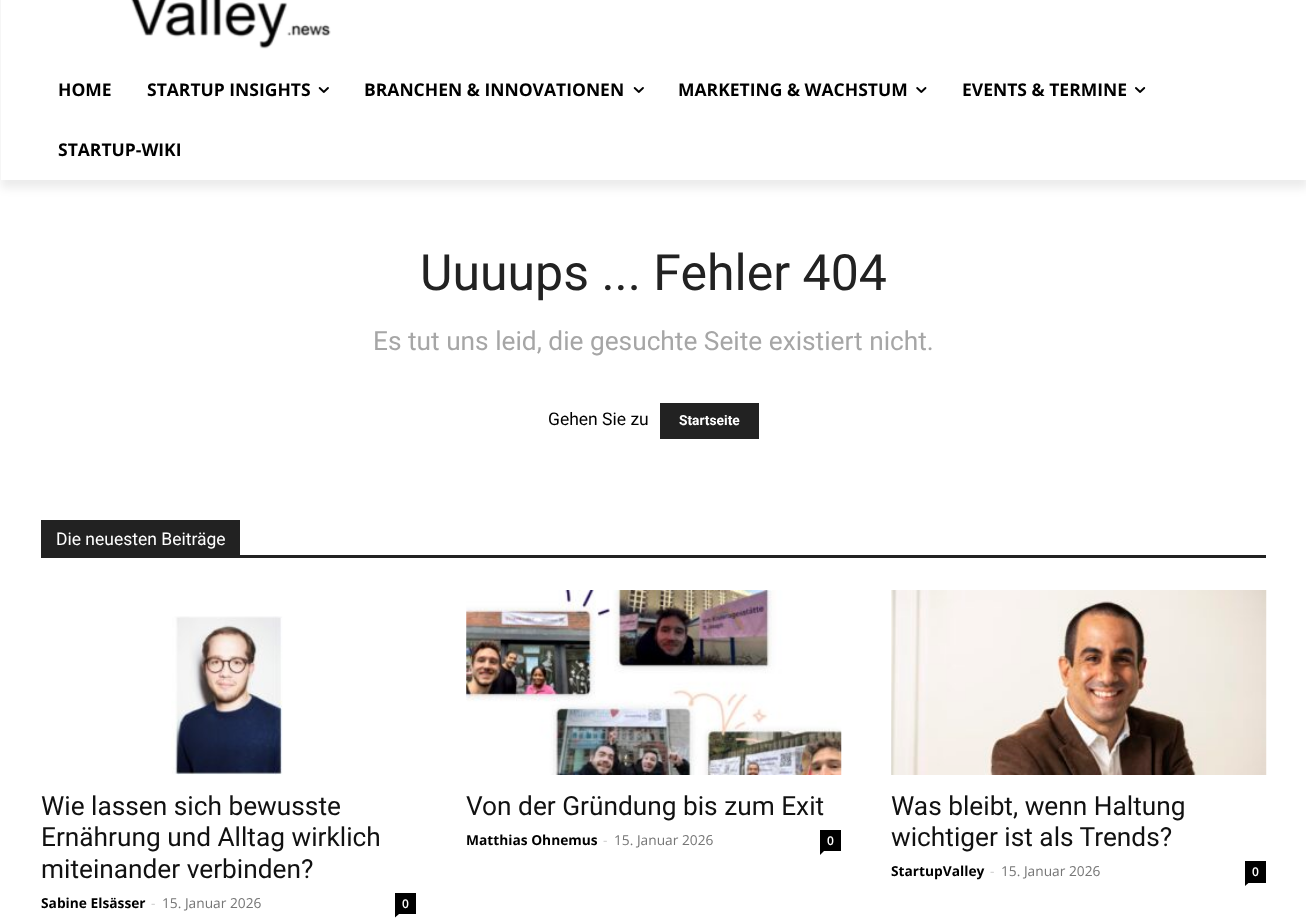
<svg xmlns="http://www.w3.org/2000/svg" width="1306" height="920">
<style>
.a{font:bold 17.5px Open Sans;fill:#000}
.b{font:50px Roboto;fill:#222}
.c{font:26.25px Roboto;fill:#a6a6a6}
.d{font:17.5px Roboto;fill:#000}
.e{font:bold 13.75px Roboto;fill:#fff}
.f{font:17.5px Roboto;fill:#fff}
.g{font:26.25px Roboto;fill:#111}
.h{font:bold 13.75px Open Sans;fill:#000}
.i{font:13.75px Open Sans;fill:#ccc}
.j{font:13.75px Open Sans;fill:#767676}
.k{font:600 12px Open Sans;fill:#fff}
</style>
<defs>
<clipPath id="clip1"><path d="M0 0h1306v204h-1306zm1-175h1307v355h-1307z" clip-rule="evenodd"/></clipPath>
</defs>
<rect width="100%" height="100%" fill="#fff"/>
<image href="1.png" x="131" y="0" width="200" height="49"/>
<g clip-path="url(#clip1)">
<path fill="#00000014" filter="blur(5px)" d="M1 -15h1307v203H1z"/>
</g>
<image href="2.png" x="318" y="87" width="11" height="6"/>
<image href="2.png" x="633" y="87" width="11" height="6"/>
<image href="3.png" x="916" y="87" width="11" height="6"/>
<image href="4.png" x="1135" y="87" width="11" height="6"/>
<path fill="#222" d="M660 403h99v36H660z"/>
<path fill="#222" d="M41 555h1225v3H41z"/>
<path fill="#222" d="M41 520h199v35H41z"/>
<image href="5.png" x="171" y="616" width="112" height="159"/>
<path fill="#000" d="M395 893h21v21H395z"/>
<path fill="#000" d="M395 914h4l-4 3.5z"/>
<image href="6.png" x="466" y="590" width="376" height="185"/>
<path fill="#000" d="M820 830h21v21H820z"/>
<path fill="#000" d="M820 851h4l-4 4z"/>
<image href="7.png" x="891" y="590" width="376" height="185"/>
<path fill="#000" d="M1245 861h21v22H1245z"/>
<path fill="#000" d="M1245 882.5h4l-4 3.5z"/>
<text class="a" x="58" y="96">HOME</text>
<text class="a" x="147" y="96">STARTUP INSIGHTS</text>
<text class="a" x="364" y="96">BRANCHEN &amp; INNOVATIONEN</text>
<text class="a" x="678" y="96">MARKETING &amp; WACHSTUM</text>
<text class="a" x="962" y="96">EVENTS &amp; TERMINE</text>
<text class="a" x="58" y="156">STARTUP-WIKI</text>
<text class="b" x="420" y="290">Uuuups ... Fehler 404</text>
<text class="c" x="373" y="350">Es tut uns leid, die gesuchte Seite existiert nicht.</text>
<text class="d" x="548" y="425">Gehen Sie zu</text>
<text class="e" x="679" y="425">Startseite</text>
<text class="f" x="56" y="545">Die neuesten Beiträge</text>
<text class="g" x="41" y="815">Wie lassen sich bewusste</text>
<text class="g" x="41" y="846">Ernährung und Alltag wirklich</text>
<text class="g" x="41" y="878">miteinander verbinden?</text>
<text class="h" x="41" y="908">Sabine Elsässer</text>
<text class="i" x="151" y="908">-</text>
<text class="j" x="162" y="908">15. Januar 2026</text>
<text class="k" x="402" y="908">0</text>
<text class="g" x="466" y="815">Von der Gründung bis zum Exit</text>
<text class="h" x="466" y="845">Matthias Ohnemus</text>
<text class="i" x="603" y="845">-</text>
<text class="j" x="614" y="845">15. Januar 2026</text>
<text class="k" x="827" y="845">0</text>
<text class="g" x="891" y="815">Was bleibt, wenn Haltung</text>
<text class="g" x="891" y="846">wichtiger ist als Trends?</text>
<text class="h" x="891" y="876">StartupValley</text>
<text class="i" x="990" y="876">-</text>
<text class="j" x="1001" y="876">15. Januar 2026</text>
<text class="k" x="1252" y="876">0</text>
</svg>
